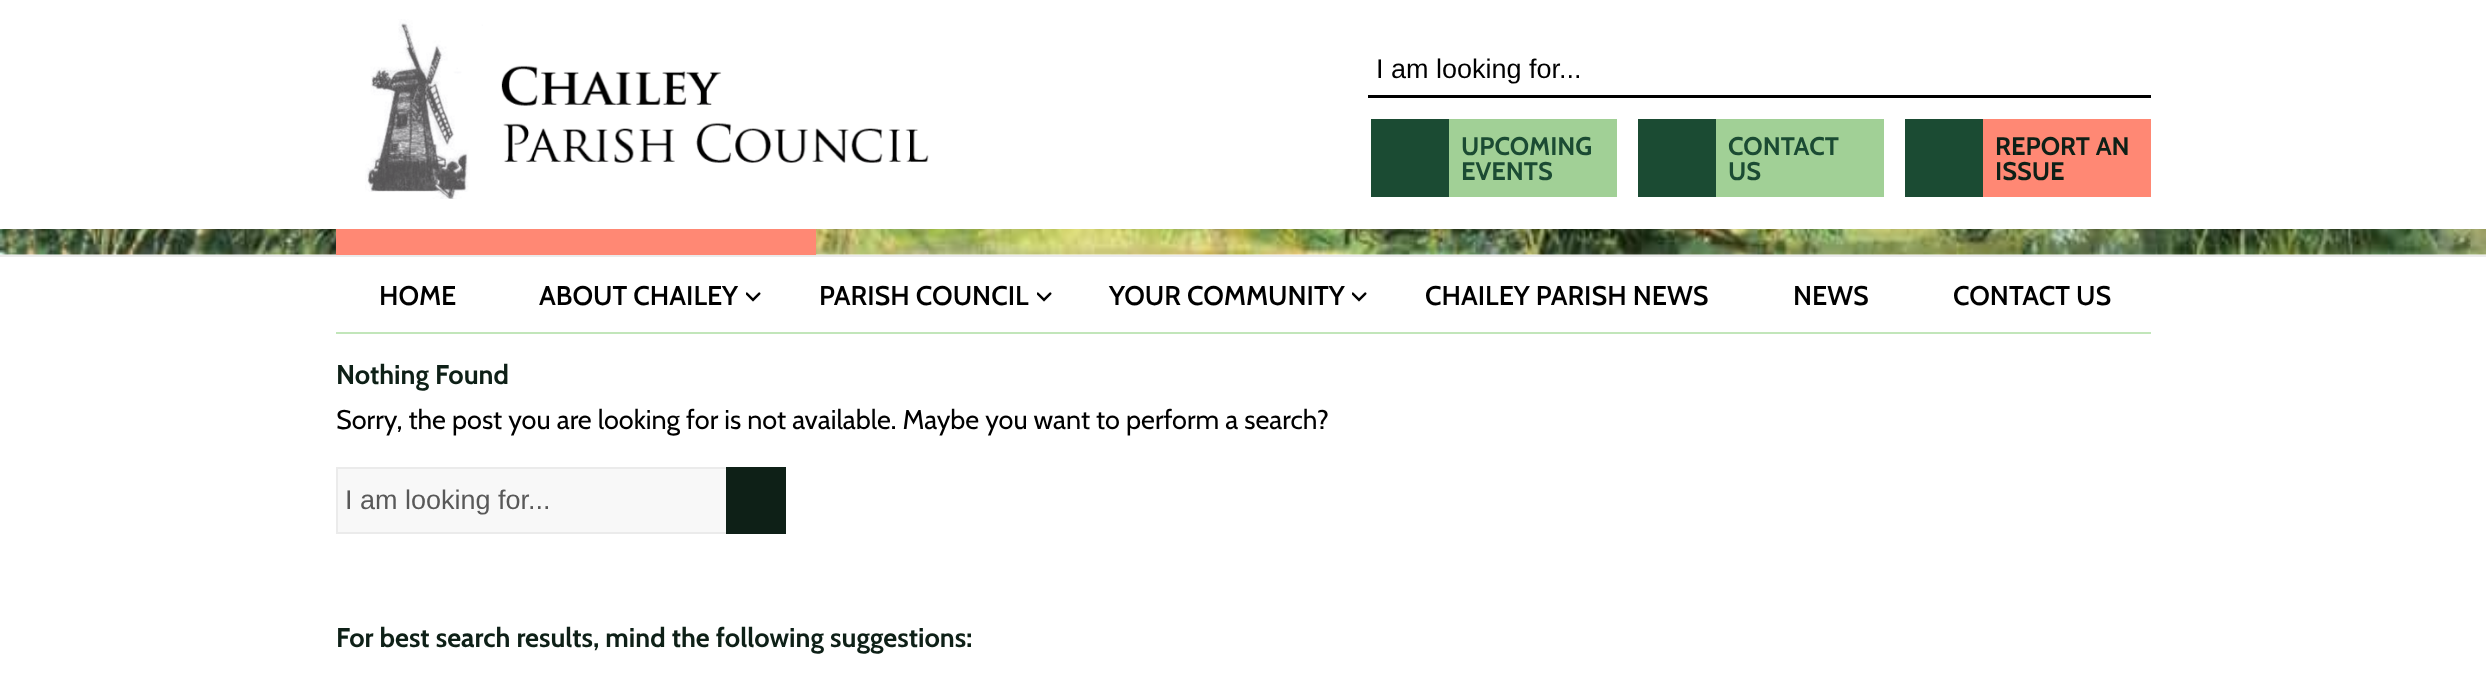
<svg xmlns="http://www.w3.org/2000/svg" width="2486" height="681">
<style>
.a{font:27px Liberation Sans;fill:#000}
.b{font:bold 25.5px Cabin;fill:#1b4b33}
.c{font:bold 25.5px Cabin;fill:#0e2017}
.d{font:600 27px Cabin;fill:#000}
.e{font:bold 27px Cabin;fill:#0e2017}
.f{font:27px Cabin;fill:#000}
.g{font:27px Liberation Sans;fill:#595959}
</style>
<rect width="100%" height="100%" fill="#fff"/>
<image href="1.png" x="365" y="19" width="564" height="180"/>
<path fill="#000" d="M1368 95h783v3H1368z"/>
<path fill="#a1d096" d="M1449 119h168v78H1449z"/>
<path fill="#1b4b33" d="M1371 119h78v78H1371z"/>
<path fill="#a1d096" d="M1716 119h168v78H1716z"/>
<path fill="#1b4b33" d="M1638 119h78v78H1638z"/>
<path fill="#ff8874" d="M1983 119h168v78H1983z"/>
<path fill="#1b4b33" d="M1905 119h78v78H1905z"/>
<path fill="#c2e6ba" d="M336 332h1815v2H336z"/>
<image href="2.png" x="746" y="292" width="15" height="10"/>
<image href="2.png" x="1037" y="292" width="15" height="10"/>
<image href="2.png" x="1352" y="292" width="15" height="10"/>
<image href="3.png" x="0" y="229" width="2486" height="26"/>
<path fill="#ff8874" d="M336 229h480v26H336z"/>
<path fill="#ebebeb" d="M0 255h2486v2H0z"/>
<path fill="#f8f8f8" d="M338 469h388v63H338z"/>
<path fill="none" stroke="#ebebeb" stroke-width="2" d="M337 468h448v65H337z"/>
<path fill="#0e2017" d="M726 467h60v67H726z"/>
<text class="a" x="1376" y="78">I am looking for...</text>
<text class="b" x="1461" y="155">UPCOMING</text>
<text class="b" x="1461" y="180">EVENTS</text>
<text class="b" x="1728" y="155">CONTACT</text>
<text class="b" x="1728" y="180">US</text>
<text class="c" x="1995" y="155">REPORT AN</text>
<text class="c" x="1995" y="180">ISSUE</text>
<text class="d" x="379" y="305">HOME</text>
<text class="d" x="539" y="305">ABOUT CHAILEY</text>
<text class="d" x="819" y="305">PARISH COUNCIL</text>
<text class="d" x="1109" y="305">YOUR COMMUNITY</text>
<text class="d" x="1425" y="305">CHAILEY PARISH NEWS</text>
<text class="d" x="1793" y="305">NEWS</text>
<text class="d" x="1953" y="305">CONTACT US</text>
<text class="e" x="336" y="384">Nothing Found</text>
<text class="f" x="336" y="429">Sorry, the post you are looking for is not available. Maybe you want to perform a search?</text>
<text class="g" x="345" y="509">I am looking for...</text>
<text class="e" x="336" y="647">For best search results, mind the following suggestions:</text>
</svg>
